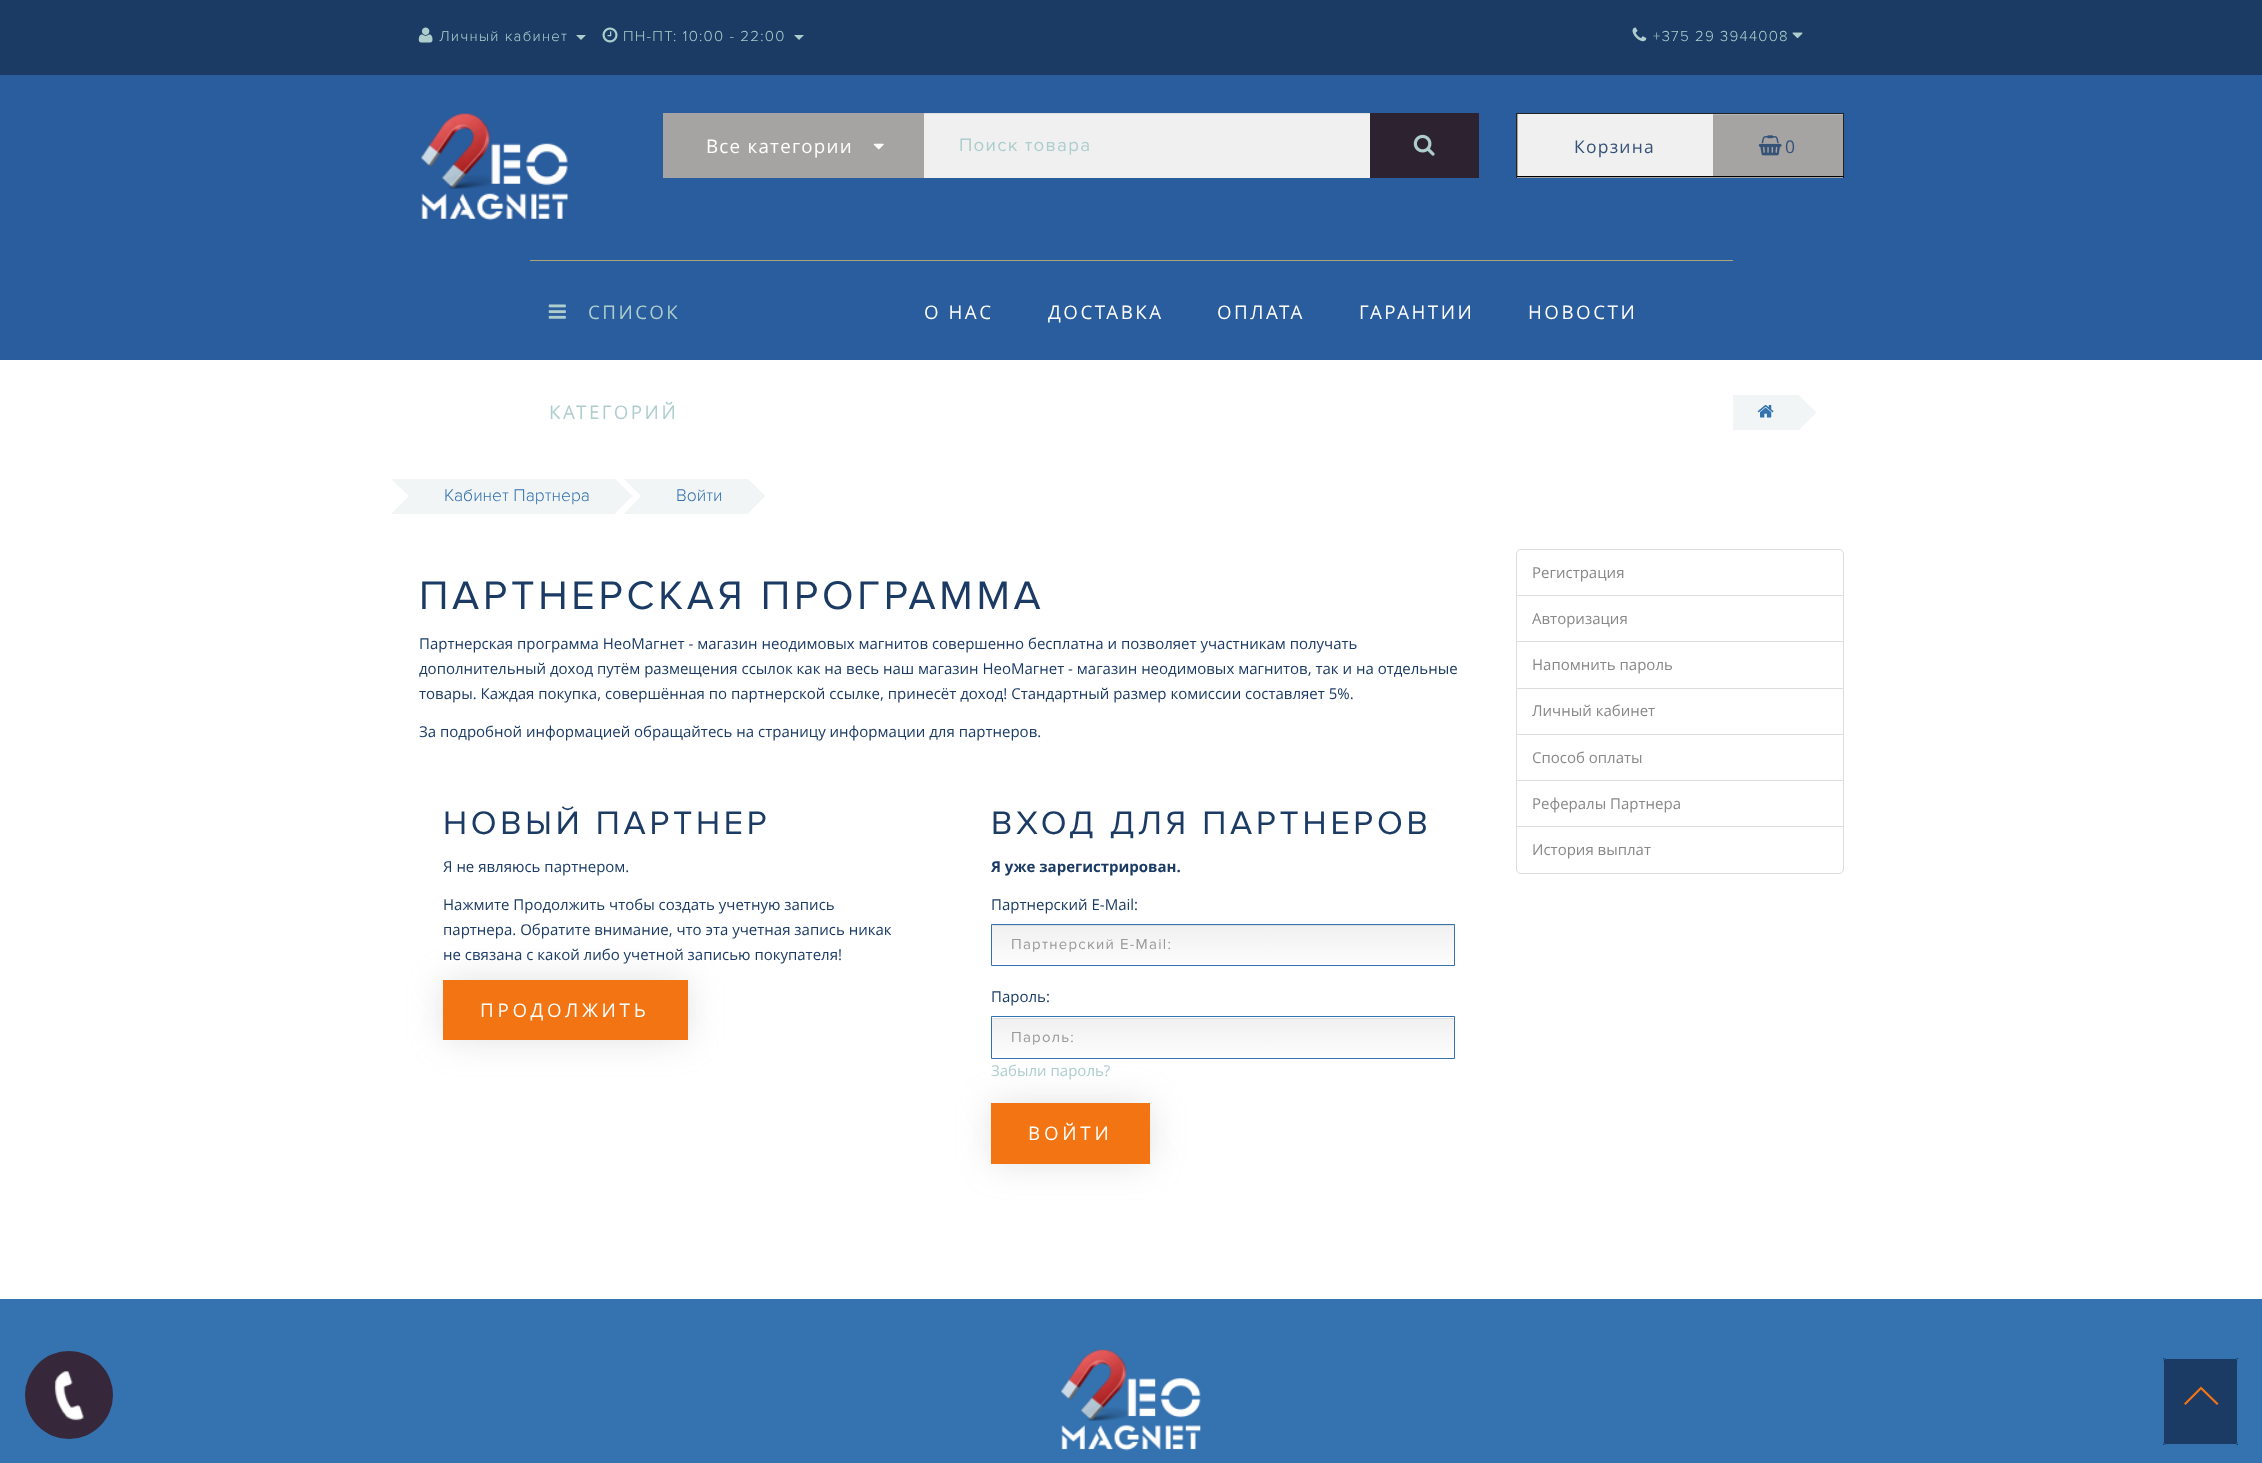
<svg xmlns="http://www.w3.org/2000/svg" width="2262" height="1463">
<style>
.a{font:300 15px Proxima Nova;letter-spacing:1.25px;fill:#adcecc}
.b{font:18.75px Open Sans;letter-spacing:1.25px;fill:#fff}
.c{font:18.75px Proxima Nova;letter-spacing:1.25px;fill:#adcecc}
.d{font:17.5px Open Sans;letter-spacing:1.25px;fill:#355277}
.e{font:18.75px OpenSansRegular;letter-spacing:2.5px;fill:#adcecc}
.f{font:18.75px OpenSansRegular;letter-spacing:2.5px;fill:#fff}
.g{font:300 17.5px Proxima Nova;fill:#3572b0}
.h{font:41.25px Proxima Nova;letter-spacing:3.75px;fill:#1b3b65}
.i{font:15px Open Sans;fill:#1b3b65}
.j{font:33.75px Proxima Nova;letter-spacing:3.75px;fill:#1b3b65}
.k{font:18.75px OpenSansRegular;letter-spacing:3.75px;fill:#fff}
.l{font:bold 15px Open Sans;fill:#1b3b65}
.m{font:15px Proxima Nova;letter-spacing:1.25px;fill:#999}
.n{font:15px Open Sans;fill:#adcecc}
.o{font:15px Open Sans;fill:#888}
</style>
<defs>
<linearGradient id="g1" gradientUnits="userSpaceOnUse" x1="1223" y1="925" x2="1223" y2="965"><stop offset="0" stop-color="#f0f0f0"/><stop offset="1" stop-color="#fdfdfd"/></linearGradient>
<linearGradient id="g2" gradientUnits="userSpaceOnUse" x1="1223" y1="1018" x2="1223" y2="1058"><stop offset="0" stop-color="#f0f0f0"/><stop offset="1" stop-color="#fdfdfd"/></linearGradient>
</defs>
<rect width="100%" height="100%" fill="#fff"/>
<path fill="#1b3b65" d="M0 0h2262v75H0z"/>
<image href="1.png" x="418" y="27" width="15" height="16"/>
<path fill="#adcecc" d="M576 35h10l-5 5z"/>
<image href="2.png" x="602" y="27" width="16" height="16"/>
<path fill="#adcecc" d="M794 35h10l-5 5z"/>
<image href="3.png" x="1632" y="27" width="15" height="15"/>
<image href="4.png" x="1792" y="32" width="11" height="7"/>
<path fill="#2a5d9e" d="M0 75h2262v285H0z"/>
<image href="5.png" x="421" y="113" width="148" height="108"/>
<path fill="#a6a3a3" d="M663 113h261v65H663z"/>
<image href="6.png" x="873" y="143" width="11" height="7"/>
<path fill="#f0f0f1" d="M924 114h446v64H924z"/>
<path fill="#dededf" d="M924 113h447v1H924z"/>
<path fill="#2d2230" d="M1370 113h109v65H1370z"/>
<image href="7.png" x="1413" y="134" width="22" height="22"/>
<path fill="#a6a3a3" d="M1517 114h326v64H1517z"/>
<path fill="#b8b5b5" d="M1713 114h130v1H1713z"/>
<path fill="#222" d="M1516 113h328v1H1516z"/>
<path fill="#222" d="M1843 113h1v65H1843z"/>
<path fill="#000" d="M1516 176h328v1H1516z"/>
<path fill="#222" d="M1516 113h1v65H1516z"/>
<path fill="#f0f0f1" d="M1518 114h195v62H1518z"/>
<image href="8.png" x="1758" y="135" width="24" height="21"/>
<path fill="#ada479" d="M530 260h1203v1H530z"/>
<image href="9.png" x="548" y="304" width="18" height="15"/>
<path fill="#f1f5f5" d="M1733 395h66v35H1733z"/>
<image href="10.png" x="1757" y="405" width="17" height="13"/>
<path fill="#f1f5f5" d="M1781 412.5l17.5-17.5l18 17.5l-17.5 17.5z"/>
<path fill="#f1f5f5" d="M426 479h189v35H426z"/>
<path fill="#f1f5f5" d="M391 479h35l-17 17z"/>
<path fill="#f1f5f5" d="M409 479h17v35H409z"/>
<path fill="#f1f5f5" d="M426 514h-35l18-18z"/>
<path fill="#f1f5f5" d="M597 496l17.5-17.5l18 17.5l-18 18z"/>
<path fill="#f1f5f5" d="M659 479h89v35H659z"/>
<path fill="#f1f5f5" d="M624 479h35l-18 17z"/>
<path fill="#f1f5f5" d="M641 479h18v35H641z"/>
<path fill="#f1f5f5" d="M659 514h-35l17-18z"/>
<path fill="#f1f5f5" d="M730 496l17.5-17.5l18 17.5l-18 18z"/>
<path fill="#9e999e4d" filter="blur(17.5px)" d="M444 981h242v58H444z"/>
<path fill="#f27413" d="M443 980h245v60H443z"/>
<path fill="url(#g1)" d="M992 925h462v38H992z"/>
<path fill="#dedede" d="M993 925h461v1H993z"/>
<path fill="none" stroke="#3572b0" d="M991.5 924.5h463v41H991.5z"/>
<path fill="url(#g2)" d="M992 1018h462v38H992z"/>
<path fill="#dedede" d="M993 1018h461v1H993z"/>
<path fill="none" stroke="#3572b0" d="M991.5 1016.5h463v42H991.5z"/>
<path fill="#9e999e4d" filter="blur(17.5px)" d="M993 1104h156v59H993z"/>
<path fill="#f27413" d="M991 1103h159v61H991z"/>
<path fill="none" stroke="#ddd" d="M1521 549.5h318c2.5 0 4.5 2 4.5 4.5v41.5h-327v-41.5c0-2.5 2-4.5 4.5-4.5z"/>
<path fill="none" stroke="#ddd" d="M1516.5 595.5h327v47H1516.5z"/>
<path fill="#fff" d="M1517 642h326v1H1517z"/>
<path fill="none" stroke="#ddd" d="M1516.5 641.5h327v47H1516.5z"/>
<path fill="none" stroke="#ddd" d="M1516.5 688.5h327v46H1516.5z"/>
<path fill="none" stroke="#ddd" d="M1516.5 734.5h327v46H1516.5z"/>
<path fill="none" stroke="#ddd" d="M1516.5 780.5h327v47H1516.5z"/>
<path fill="#fff" stroke="#ddd" d="M1516.5 826.5h327v42.5c0 2.5-2 4.5-4.5 4.5h-318c-2.5 0-4.5-2-4.5-4.5z"/>
<path fill="#3572b0" d="M0 1299h2262v164H0z"/>
<image href="11.png" x="1061" y="1349" width="141" height="102"/>
<circle fill="#36283a" cx="69" cy="1395" r="44"/>
<image href="12.png" x="54" y="1371" width="30" height="50"/>
<path fill="#1b3b65" d="M2163 1358h75v87H2163z"/>
<rect fill="none" stroke="#3572b0" x="2163.5" y="1358.5" width="74" height="86" rx="2"/>
<path fill="#f27413" d="M2218.5 1403.5l-1.5 1.5l-16-15.5l-15.5 15.5l-1.5-1.5l17-17z"/>
<text class="a" x="439" y="41">Личный кабинет</text>
<text class="a" x="623" y="41">ПН-ПТ: 10:00 - 22:00</text>
<text class="a" x="1653" y="41">+375 29 3944008</text>
<text class="b" x="706" y="153">Все категории</text>
<text class="c" x="959" y="151">Поиск товара</text>
<text class="d" x="1574" y="153">Корзина</text>
<text class="d" x="1785" y="153">0</text>
<text class="e" x="588" y="319">СПИСОК</text>
<text class="e" x="549" y="419">КАТЕГОРИЙ</text>
<text class="f" x="924" y="319">О НАС</text>
<text class="f" x="1048" y="319">ДОСТАВКА</text>
<text class="f" x="1217" y="319">ОПЛАТА</text>
<text class="f" x="1359" y="319">ГАРАНТИИ</text>
<text class="f" x="1528" y="319">НОВОСТИ</text>
<text class="g" x="444" y="501">Кабинет Партнера</text>
<text class="g" x="676" y="501">Войти</text>
<text class="h" x="419" y="609">ПАРТНЕРСКАЯ ПРОГРАММА</text>
<text class="i" x="419" y="649">Партнерская программа НеоМагнет - магазин неодимовых магнитов совершенно бесплатна и позволяет участникам получать</text>
<text class="i" x="419" y="674">дополнительный доход путём размещения ссылок как на весь наш магазин НеоМагнет - магазин неодимовых магнитов, так и на отдельные</text>
<text class="i" x="419" y="699">товары. Каждая покупка, совершённая по партнерской ссылке, принесёт доход! Стандартный размер комиссии составляет 5%.</text>
<text class="i" x="419" y="737">За подробной информацией обращайтесь на страницу информации для партнеров.</text>
<text class="j" x="443" y="834">НОВЫЙ ПАРТНЕР</text>
<text class="i" x="443" y="872">Я не являюсь партнером.</text>
<text class="i" x="443" y="910">Нажмите Продолжить чтобы создать учетную запись</text>
<text class="i" x="443" y="935">партнера. Обратите внимание, что эта учетная запись никак</text>
<text class="i" x="443" y="960">не связана с какой либо учетной записью покупателя!</text>
<text class="k" x="480" y="1017">ПРОДОЛЖИТЬ</text>
<text class="j" x="991" y="834">ВХОД ДЛЯ ПАРТНЕРОВ</text>
<text class="l" x="991" y="872">Я уже зарегистрирован.</text>
<text class="i" x="991" y="910">Партнерский E-Mail:</text>
<text class="m" x="1011" y="949">Партнерский E-Mail:</text>
<text class="i" x="991" y="1002">Пароль:</text>
<text class="m" x="1011" y="1042">Пароль:</text>
<text class="n" x="991" y="1076">Забыли пароль?</text>
<text class="k" x="1028" y="1140">ВОЙТИ</text>
<text class="o" x="1532" y="578">Регистрация</text>
<text class="o" x="1532" y="624">Авторизация</text>
<text class="o" x="1532" y="670">Напомнить пароль</text>
<text class="o" x="1532" y="716">Личный кабинет</text>
<text class="o" x="1532" y="763">Способ оплаты</text>
<text class="o" x="1532" y="809">Рефералы Партнера</text>
<text class="o" x="1532" y="855">История выплат</text>
</svg>
